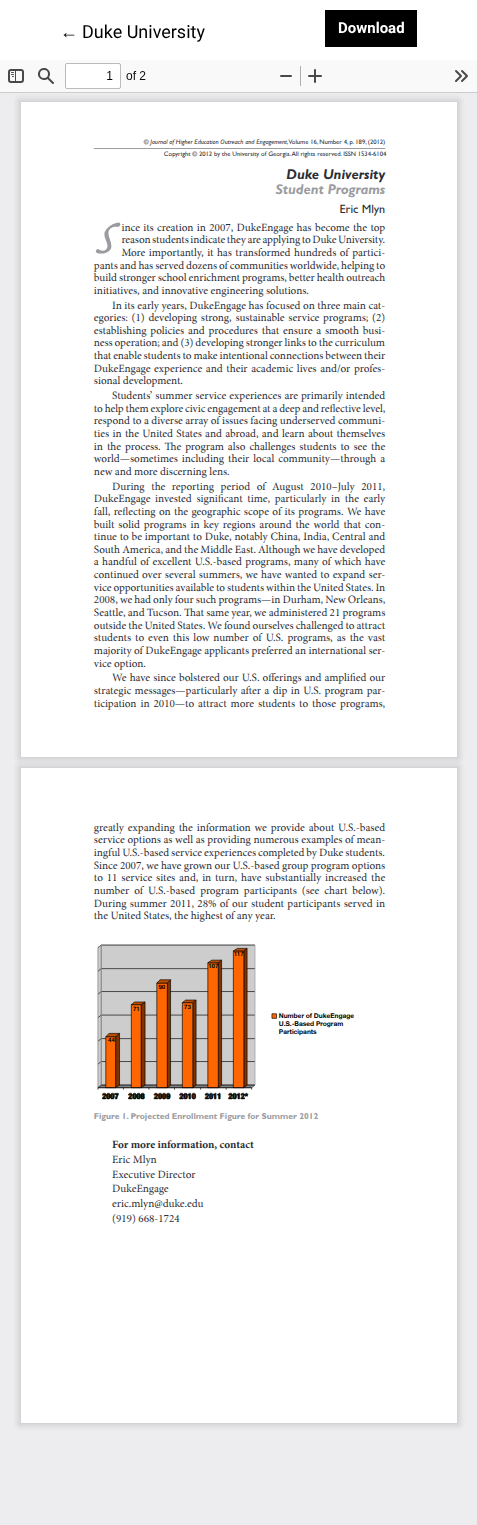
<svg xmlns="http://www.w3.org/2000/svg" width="477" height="1525">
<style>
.a{font:18px Liberation Sans;fill:#000}
.b{font:18px Roboto;fill:#000}
.c{font:bold 15px Roboto;fill:#fff}
</style>
<rect width="100%" height="100%" fill="#fff"/>
<path fill="#000" d="M325 10h92v37H325z"/>
<image href="1.png" x="0" y="60" width="477" height="1465"/>
<text class="a" x="60" y="38">←</text>
<text class="b" x="82" y="38">Duke University</text>
<text class="c" x="338" y="33">Download</text>
</svg>
